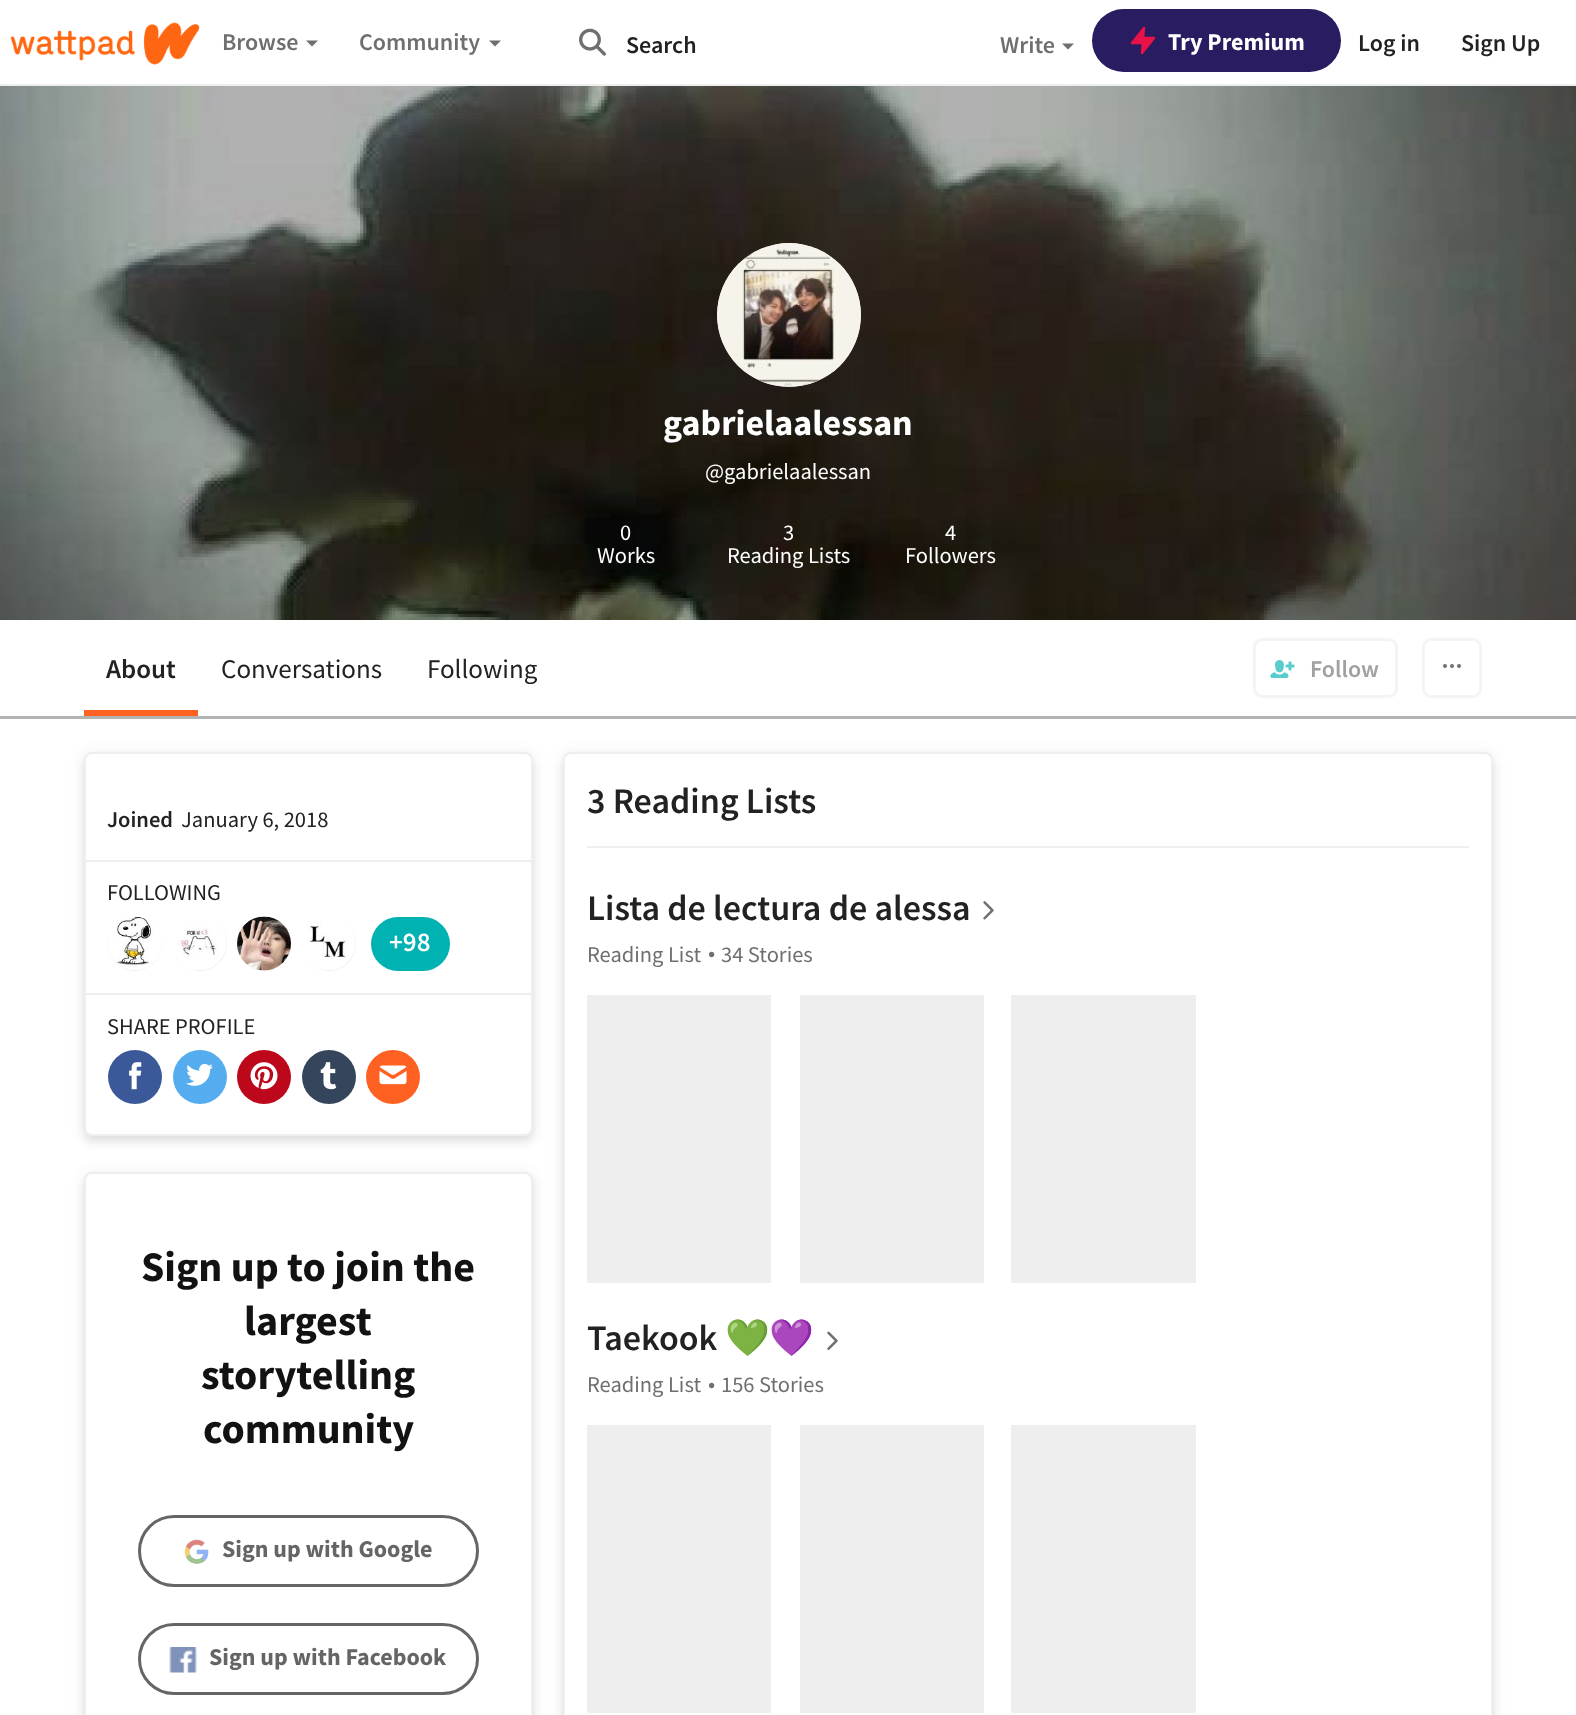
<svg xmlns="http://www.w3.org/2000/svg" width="1576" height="1715">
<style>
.a{font:600 24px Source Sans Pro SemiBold;fill:#6f6f6f}
.b{font:600 24px Source Sans Pro SemiBold;fill:#222}
.c{font:bold 24px Source Sans Pro;fill:#fff}
.d{font:bold 36px Source Sans Pro;fill:#fff}
.e{font:22.5px Source Sans Pro;fill:#fff}
.f{font:600 27px Source Sans Pro SemiBold;fill:#222}
.g{font:27px Source Sans Pro;fill:#222}
.h{font:600 24px Source Sans Pro SemiBold;fill:#a1a1a1}
.i{font:600 22.5px Source Sans Pro SemiBold;fill:#222}
.j{font:22.5px Source Sans Pro;fill:#222}
.k{font:600 27px Source Sans Pro SemiBold;fill:#fff}
.l{font:bold 42px Source Sans Pro;fill:#121212}
.m{font:bold 24px Source Sans Pro;fill:#656565}
.n{font:600 36px Source Sans Pro SemiBold;fill:#222}
.o{font:22.5px Source Sans Pro;fill:#6f6f6f}
.p{font:45px Source Sans Pro;fill:#6f6f6f}
.q{font:bold 36px Noto Color Emoji;fill:#222}
</style>
<rect width="100%" height="100%" fill="#fff"/>
<path fill="#eee" d="M0 84h1576v2H0z"/>
<image href="1.png" x="10" y="22" width="190" height="43"/>
<path fill="#6f6f6f" d="M306 40.5h12l-6 6z"/>
<path fill="#6f6f6f" d="M489 40.5h12l-6 6z"/>
<image href="2.png" x="579" y="28" width="27" height="28"/>
<path fill="#6f6f6f" d="M1062 43.5h12l-6 6z"/>
<rect fill="#2a1c60" x="1092" y="9" width="249" height="63" rx="31.5"/>
<path fill="#e81249" stroke="#e81249" stroke-width="2.5" stroke-linecap="round" stroke-linejoin="round" d="M1144 28l-12 15h11l-1 10l12-15h-11z"/>
<image href="3.png" x="0" y="86" width="1576" height="534"/>
<circle fill="#eee" cx="789" cy="315" r="72"/>
<image href="4.png" x="717" y="243" width="144" height="144"/>
<path fill="#b3b3b3" d="M0 716v3h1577v-96h-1v93z"/>
<path fill="#ff6122" d="M84 710h114v6H84z"/>
<rect fill="none" stroke="#f4f4f4" stroke-width="3" x="1254.5" y="639.5" width="142" height="57" rx="7.5"/>
<image href="5.png" x="1270" y="660" width="25" height="18"/>
<rect fill="none" stroke="#f4f4f4" stroke-width="3" x="1423.5" y="639.5" width="57" height="57" rx="7.5"/>
<circle fill="none" stroke="#6f6f6f" stroke-width="2" cx="1445" cy="666" r="1"/>
<circle fill="none" stroke="#6f6f6f" stroke-width="2" cx="1452" cy="666" r="1"/>
<circle fill="none" stroke="#6f6f6f" stroke-width="2" cx="1459" cy="666" r="1"/>
<rect fill="#2222221a" filter="blur(4px)" x="84" y="758" width="449" height="384" rx="8"/>
<rect fill="#22222214" filter="blur(7.5px)" x="84" y="753" width="449" height="384" rx="8"/>
<rect fill="#fff" stroke="#eee" stroke-width="2" x="85" y="753" width="447" height="382" rx="7"/>
<path fill="#eee" d="M86 860h445v2H86z"/>
<circle fill="#eee" cx="135" cy="944" r="27"/>
<image href="6.png" x="108" y="916" width="54" height="54"/>
<circle fill="#eee" cx="200" cy="944" r="27"/>
<image href="7.png" x="173" y="917" width="54" height="53"/>
<circle fill="#eee" cx="264" cy="944" r="27"/>
<image href="8.png" x="237" y="916" width="54" height="55"/>
<circle fill="#eee" cx="329" cy="944" r="27"/>
<image href="9.png" x="302" y="917" width="54" height="53"/>
<rect fill="#00b2b2" x="371" y="917" width="79" height="54" rx="27"/>
<path fill="#eee" d="M86 993h445v2H86z"/>
<circle fill="#3b5998" cx="135" cy="1077" r="27"/>
<image href="10.png" x="129" y="1062" width="13" height="28"/>
<circle fill="#55acee" cx="200" cy="1077" r="27"/>
<image href="11.png" x="186" y="1063" width="27" height="23"/>
<circle fill="#bd081c" cx="264" cy="1077" r="27"/>
<image href="12.png" x="250" y="1062" width="28" height="28"/>
<circle fill="#35465c" cx="329" cy="1077" r="27"/>
<image href="13.png" x="320" y="1062" width="17" height="28"/>
<circle fill="#ff6122" cx="393" cy="1077" r="27"/>
<image href="14.png" x="379" y="1065" width="28" height="20"/>
<rect fill="#2222221a" filter="blur(4px)" x="84" y="1178" width="449" height="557" rx="8"/>
<rect fill="#22222214" filter="blur(7.5px)" x="84" y="1173" width="449" height="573" rx="8"/>
<rect fill="#fff" stroke="#eee" stroke-width="2" x="85" y="1173" width="447" height="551" rx="7"/>
<rect fill="none" stroke="#656565" stroke-width="3" x="139.5" y="1516.5" width="338" height="69" rx="34.5"/>
<image href="15.png" x="184" y="1539" width="25" height="25"/>
<rect fill="none" stroke="#656565" stroke-width="3" x="139.5" y="1624.5" width="338" height="69" rx="34.5"/>
<image href="16.png" x="169" y="1647" width="28" height="26"/>
<rect fill="#2222221a" filter="blur(4px)" x="563" y="758" width="930" height="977" rx="8"/>
<rect fill="#22222214" filter="blur(7.5px)" x="563" y="753" width="930" height="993" rx="8"/>
<rect fill="#fff" stroke="#eee" stroke-width="2" x="564" y="753" width="928" height="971" rx="7"/>
<path fill="#eee" d="M587 846h882v2H587z"/>
<image href="17.png" x="983" y="901" width="11" height="19"/>
<path fill="#eee" d="M587 995h184v288H587z"/>
<path fill="#eee" d="M800 995h184v288H800z"/>
<path fill="#eee" d="M1011 995h185v288H1011z"/>
<image href="18.png" x="827" y="1331" width="11" height="19"/>
<path fill="#eee" d="M587 1425h184v288H587z"/>
<path fill="#eee" d="M800 1425h184v288H800z"/>
<path fill="#eee" d="M1011 1425h185v288H1011z"/>
<text class="a" x="222" y="50">Browse</text>
<text class="a" x="359" y="50">Community</text>
<text class="b" x="626" y="53">Search</text>
<text class="a" x="1000" y="53">Write</text>
<text class="c" x="1168" y="50">Try Premium</text>
<text class="b" x="1358" y="51">Log in</text>
<text class="b" x="1461" y="51">Sign Up</text>
<text class="d" x="663" y="435">gabrielaalessan</text>
<text class="e" x="705" y="479">@gabrielaalessan</text>
<text class="e" x="620" y="540">0</text>
<text class="e" x="597" y="563">Works</text>
<text class="e" x="783" y="540">3</text>
<text class="e" x="727" y="563">Reading Lists</text>
<text class="e" x="945" y="540">4</text>
<text class="e" x="905" y="563">Followers</text>
<text class="f" x="106" y="678">About</text>
<text class="g" x="221" y="678">Conversations</text>
<text class="g" x="427" y="678">Following</text>
<text class="h" x="1310" y="677">Follow</text>
<text class="i" x="107" y="827">Joined</text>
<text class="j" x="181" y="827">January 6, 2018</text>
<text class="j" x="107" y="900">FOLLOWING</text>
<text class="k" x="389" y="951">+98</text>
<text class="j" x="107" y="1034">SHARE PROFILE</text>
<text class="l" x="141" y="1281">Sign up to join the</text>
<text class="l" x="244" y="1335">largest</text>
<text class="l" x="201" y="1389">storytelling</text>
<text class="l" x="203" y="1443">community</text>
<text class="m" x="222" y="1557">Sign up with Google</text>
<text class="m" x="209" y="1665">Sign up with Facebook</text>
<text class="n" x="587" y="813">3 Reading Lists</text>
<text class="n" x="587" y="920">Lista de lectura de alessa</text>
<text class="o" x="587" y="962">Reading List</text>
<text class="p" x="706" y="969">·</text>
<text class="o" x="721" y="962">34 Stories</text>
<text class="n" x="587" y="1350">Taekook</text>
<text class="q" x="725" y="1350">💚💜</text>
<text class="o" x="587" y="1392">Reading List</text>
<text class="p" x="706" y="1400">·</text>
<text class="o" x="721" y="1392">156 Stories</text>
</svg>
